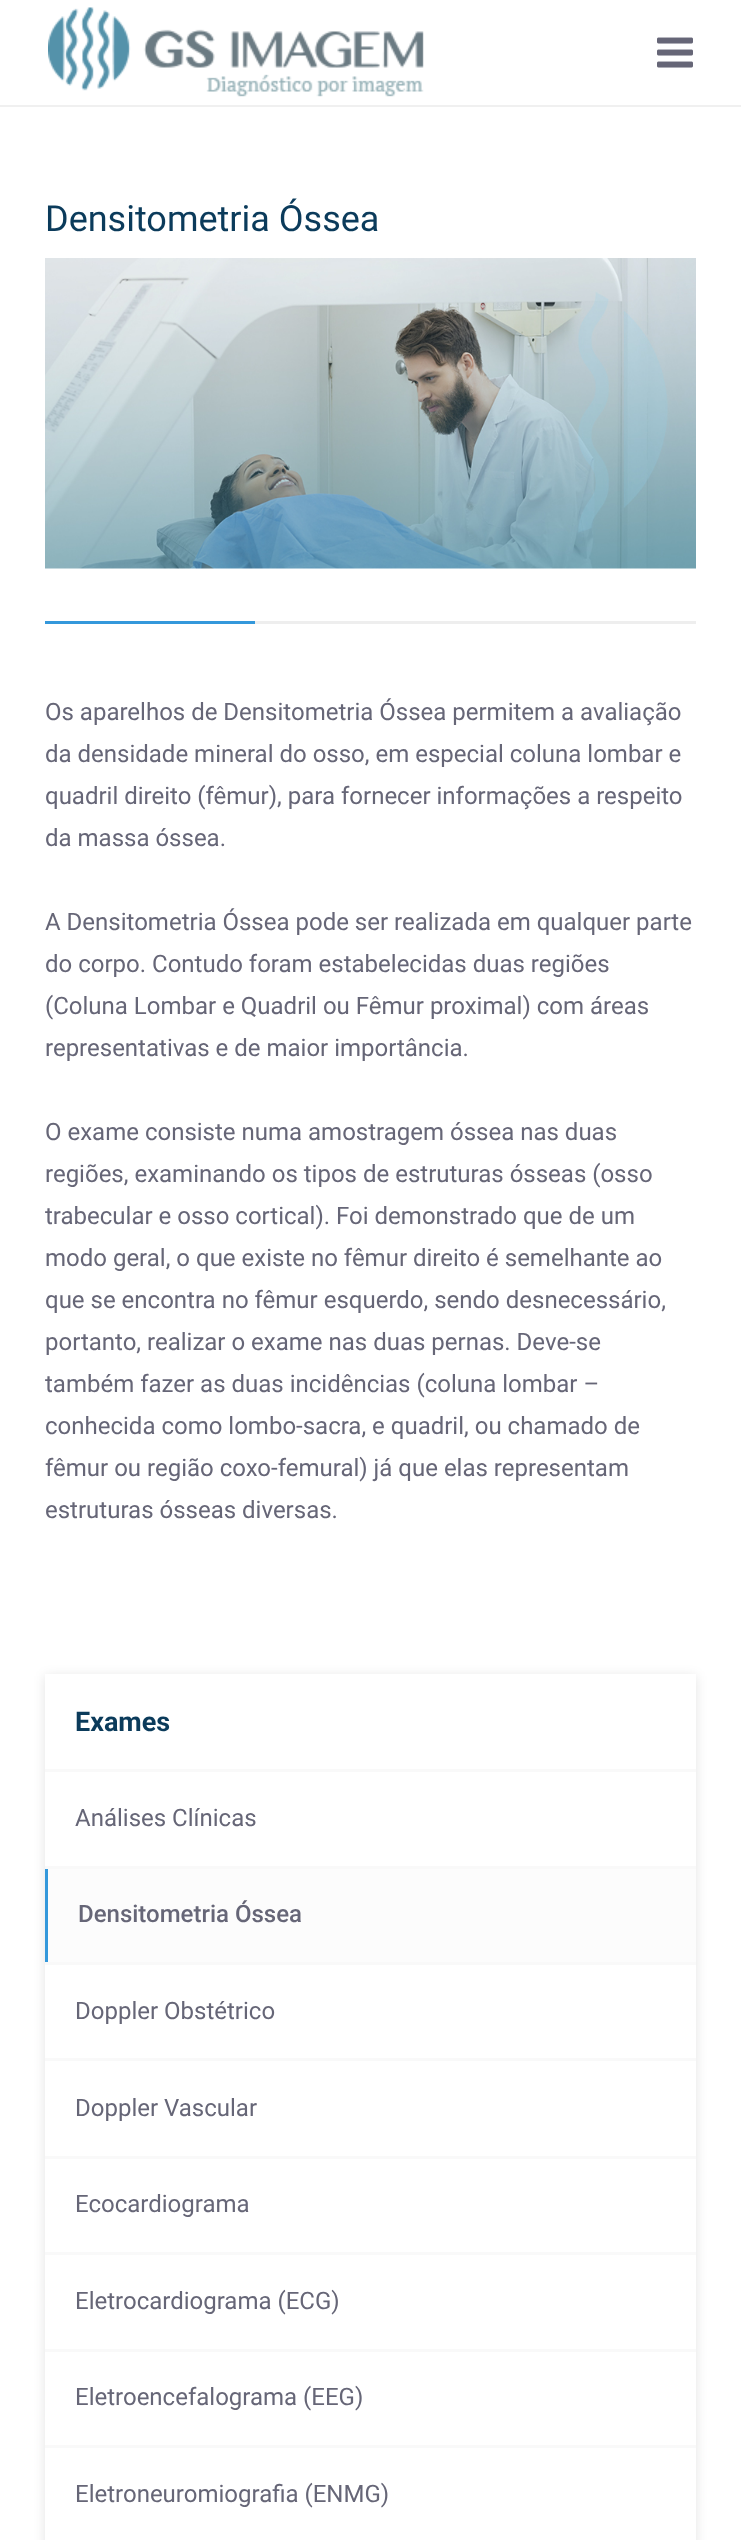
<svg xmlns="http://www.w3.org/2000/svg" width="741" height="2540">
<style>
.a{font:36px Roboto;fill:#0b3b5b}
.b{font:24px Roboto;fill:#667}
.c{font:bold 27px Roboto;fill:#0b3b5b}
.d{font:500 24px Roboto;fill:#667}
</style>
<defs>
<clipPath id="clip1"><path d="M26 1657h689v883h-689zm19 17h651v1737h-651z" clip-rule="evenodd"/></clipPath>
</defs>
<rect width="100%" height="100%" fill="#fff"/>
<path fill="#f0f0f0" d="M0 105h741v2H0z"/>
<image href="1.png" x="48" y="7" width="376" height="90"/>
<image href="2.png" x="657" y="37" width="36" height="31"/>
<image href="3.png" x="45" y="258" width="651" height="311"/>
<path fill="#3498db" d="M45 621h210v3H45z"/>
<path fill="#eee" d="M255 621h441v3H255z"/>
<g clip-path="url(#clip1)">
<path fill="#0000001c" filter="blur(6px)" d="M45 1676h651v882H45z"/>
</g>
<path fill="#f9f9f9" d="M45 1769h651v3H45z"/>
<path fill="#f9f9f9" d="M45 1866h651v3H45z"/>
<path fill="#f9f9f9" d="M45 1962h651v3H45z"/>
<path fill="#fcfcfc" d="M48 1869h648v93H48z"/>
<path fill="#3498db" d="M45 1869h3v93H45z"/>
<path fill="#f9f9f9" d="M45 2058h651v3H45z"/>
<path fill="#f9f9f9" d="M45 2156h651v3H45z"/>
<path fill="#f9f9f9" d="M45 2252h651v3H45z"/>
<path fill="#f9f9f9" d="M45 2349h651v3H45z"/>
<path fill="#f9f9f9" d="M45 2445h651v3H45z"/>
<text class="a" x="45" y="231">Densitometria Óssea</text>
<text class="b" x="45" y="720">Os aparelhos de Densitometria Óssea permitem a avaliação</text>
<text class="b" x="45" y="762">da densidade mineral do osso, em especial coluna lombar e</text>
<text class="b" x="45" y="804">quadril direito (fêmur), para fornecer informações a respeito</text>
<text class="b" x="45" y="846">da massa óssea.</text>
<text class="b" x="45" y="930">A Densitometria Óssea pode ser realizada em qualquer parte</text>
<text class="b" x="45" y="972">do corpo. Contudo foram estabelecidas duas regiões</text>
<text class="b" x="45" y="1014">(Coluna Lombar e Quadril ou Fêmur proximal) com áreas</text>
<text class="b" x="45" y="1056">representativas e de maior importância.</text>
<text class="b" x="45" y="1140">O exame consiste numa amostragem óssea nas duas</text>
<text class="b" x="45" y="1182">regiões, examinando os tipos de estruturas ósseas (osso</text>
<text class="b" x="45" y="1224">trabecular e osso cortical). Foi demonstrado que de um</text>
<text class="b" x="45" y="1266">modo geral, o que existe no fêmur direito é semelhante ao</text>
<text class="b" x="45" y="1308">que se encontra no fêmur esquerdo, sendo desnecessário,</text>
<text class="b" x="45" y="1350">portanto, realizar o exame nas duas pernas. Deve-se</text>
<text class="b" x="45" y="1392">também fazer as duas incidências (coluna lombar –</text>
<text class="b" x="45" y="1434">conhecida como lombo-sacra, e quadril, ou chamado de</text>
<text class="b" x="45" y="1476">fêmur ou região coxo-femural) já que elas representam</text>
<text class="b" x="45" y="1518">estruturas ósseas diversas.</text>
<text class="c" x="75" y="1731">Exames</text>
<text class="b" x="75" y="1826">Análises Clínicas</text>
<text class="d" x="78" y="1922">Densitometria Óssea</text>
<text class="b" x="75" y="2019">Doppler Obstétrico</text>
<text class="b" x="75" y="2116">Doppler Vascular</text>
<text class="b" x="75" y="2212">Ecocardiograma</text>
<text class="b" x="75" y="2309">Eletrocardiograma (ECG)</text>
<text class="b" x="75" y="2405">Eletroencefalograma (EEG)</text>
<text class="b" x="75" y="2502">Eletroneuromiografia (ENMG)</text>
</svg>
